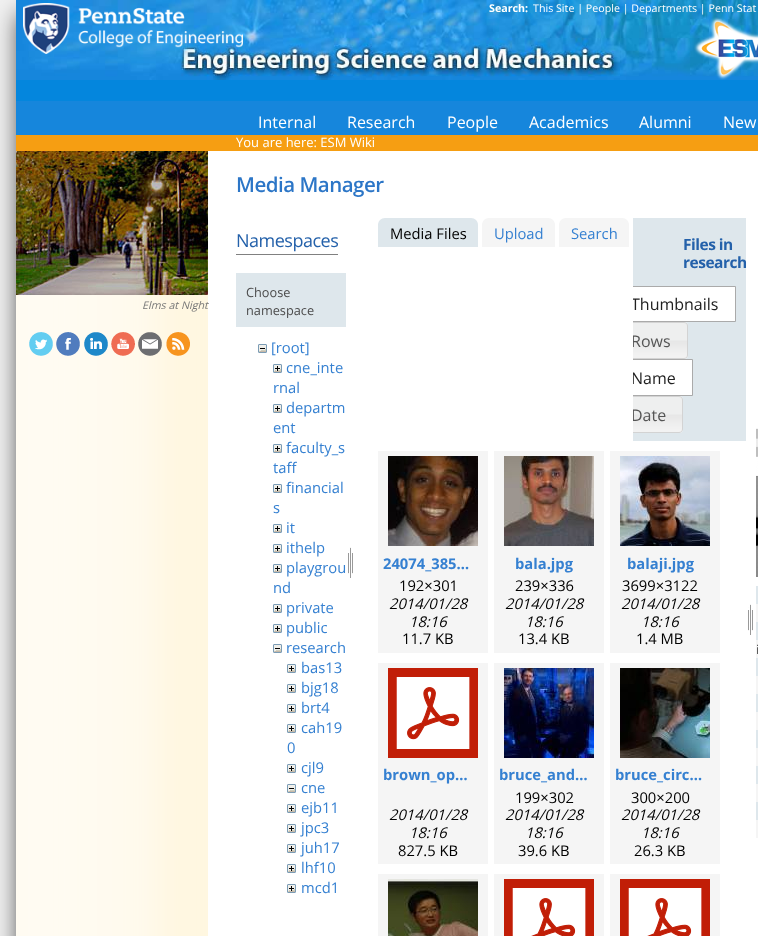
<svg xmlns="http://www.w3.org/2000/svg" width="758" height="936">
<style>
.a{font:bold 10.7px Open Sans;fill:#fff}
.b{font:10.7px Open Sans;fill:#fff}
.c{font:16px Open Sans;fill:#fff}
.d{font:13px Open Sans;fill:#fff}
.e{font:italic 10.7px Open Sans;fill:#777}
.f{font:600 20.5px Open Sans;letter-spacing:-0.5px;fill:#2c76c7}
.g{font:18px Open Sans;letter-spacing:-0.5px;fill:#2461aa}
.h{font:12.75px Open Sans;fill:#4c4c4c}
.i{font:14.75px Open Sans;fill:#3580d1}
.j{font:14.75px Open Sans;fill:#000}
.k{font:bold 15.5px Open Sans;letter-spacing:-0.5px;fill:#2461aa}
.l{font:16px Open Sans;fill:#212121}
.m{font:16px Open Sans;fill:#555}
.n{font:bold 14.75px Open Sans;fill:#3580d1}
.o{font:italic 14.75px Open Sans;fill:#000}
</style>
<defs>
<clipPath id="clip1"><path d="M633 218h113v223H633z"/></clipPath>
</defs>
<rect width="100%" height="100%" fill="#f1f1f1"/>
<path fill="#000000bf" filter="blur(12px)" d="M19 14h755v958H19z"/>
<path fill="#fff" d="M208 151h550v785H208z"/>
<path fill="#0486dd" d="M16 80h742v21H16z"/>
<image href="1.png" x="16" y="0" width="742" height="80"/>
<image href="2.png" x="23" y="3" width="220" height="51"/>
<image href="3.png" x="694" y="17" width="64" height="63"/>
<path fill="#1686dc" d="M16 101h742v34H16z"/>
<path fill="#f69e12" d="M16 135h742v16H16z"/>
<image href="4.png" x="16" y="295" width="192" height="641"/>
<image href="5.png" x="16" y="151" width="192" height="144"/>
<image href="6.png" x="29" y="332" width="24" height="24"/>
<image href="7.png" x="56" y="332" width="24" height="24"/>
<image href="8.png" x="84" y="332" width="24" height="24"/>
<image href="9.png" x="111" y="332" width="24" height="24"/>
<image href="10.png" x="138" y="332" width="24" height="24"/>
<image href="11.png" x="166" y="332" width="24" height="24"/>
<path fill="#808080" d="M236 254h102v1H236z"/>
<path fill="#dee7ec" d="M236 273h110v54H236z"/>
<image href="12.png" x="258" y="344" width="9" height="9"/>
<image href="13.png" x="273" y="364" width="9" height="9"/>
<image href="13.png" x="273" y="404" width="9" height="9"/>
<image href="13.png" x="273" y="444" width="9" height="9"/>
<image href="13.png" x="273" y="484" width="9" height="9"/>
<image href="13.png" x="273" y="524" width="9" height="9"/>
<image href="13.png" x="273" y="544" width="9" height="9"/>
<image href="13.png" x="273" y="564" width="9" height="9"/>
<image href="13.png" x="273" y="604" width="9" height="9"/>
<image href="13.png" x="273" y="624" width="9" height="9"/>
<image href="12.png" x="273" y="644" width="9" height="9"/>
<image href="13.png" x="287" y="664" width="9" height="9"/>
<image href="13.png" x="287" y="684" width="9" height="9"/>
<image href="13.png" x="287" y="704" width="9" height="9"/>
<image href="13.png" x="287" y="724" width="9" height="9"/>
<image href="13.png" x="287" y="764" width="9" height="9"/>
<image href="12.png" x="287" y="784" width="9" height="9"/>
<image href="13.png" x="287" y="804" width="9" height="9"/>
<image href="13.png" x="287" y="824" width="9" height="9"/>
<image href="13.png" x="287" y="844" width="9" height="9"/>
<image href="13.png" x="287" y="864" width="9" height="9"/>
<image href="13.png" x="287" y="884" width="9" height="9"/>
<image href="14.png" x="348" y="547" width="5" height="31"/>
<path fill="#dee7ec" d="M385 218h86c4 0 7 3 7 7v22h-100v-22c0-4 3-7 7-7z"/>
<path fill="#f5f5f5" d="M489 218h59c4 0 7 3 7 7v22h-73v-22c0-4 3-7 7-7z"/>
<path fill="#f5f5f5" d="M566 218h56c4 0 7 3 7 7v22h-70v-22c0-4 3-7 7-7z"/>
<path fill="#dee7ec" d="M633 218h113v223H633z"/>
<path fill="#fff" d="M633 287h102v34H633z"/>
<g clip-path="url(#clip1)">
<path fill="none" stroke="#aaa" d="M618 286.5h117.5v35h-117.5c-2 0-3.5-1.5-3.5-3.5v-28c0-2 1.5-3.5 3.5-3.5z"/>
</g>
<image href="15.png" x="633" y="322" width="55" height="37"/>
<g clip-path="url(#clip1)">
<path fill="none" stroke="#d3d3d3" d="M614.5 322.5h69.5c2 0 3.5 1.5 3.5 3.5v29c0 2-1.5 3.5-3.5 3.5h-69.5z"/>
</g>
<path fill="#fff" d="M633 360h59v35H633z"/>
<g clip-path="url(#clip1)">
<path fill="none" stroke="#aaa" d="M618 359.5h74.5v36h-74.5c-2 0-3.5-1.5-3.5-3.5v-29c0-2 1.5-3.5 3.5-3.5z"/>
</g>
<image href="16.png" x="633" y="396" width="50" height="37"/>
<g clip-path="url(#clip1)">
<path fill="none" stroke="#d3d3d3" d="M614.5 396.5h64.5c2 0 3.5 1.5 3.5 3.5v29c0 2-1.5 3.5-3.5 3.5h-64.5z"/>
</g>
<path fill="#f5f5f5" d="M378 451h110v202H378z"/>
<image href="17.png" x="388" y="456" width="90" height="90"/>
<path fill="#f5f5f5" d="M494 451h110v202H494z"/>
<image href="18.png" x="504" y="456" width="90" height="90"/>
<path fill="#f5f5f5" d="M610 451h110v202H610z"/>
<image href="19.png" x="620" y="456" width="90" height="90"/>
<path fill="#f5f5f5" d="M378 663h110v201H378z"/>
<image href="20.png" x="388" y="668" width="90" height="90"/>
<path fill="#f5f5f5" d="M494 663h110v201H494z"/>
<image href="21.png" x="504" y="668" width="90" height="90"/>
<path fill="#f5f5f5" d="M610 663h110v201H610z"/>
<image href="22.png" x="620" y="668" width="90" height="90"/>
<path fill="#f5f5f5" d="M378 874h110v62H378z"/>
<image href="23.png" x="388" y="879" width="90" height="57"/>
<path fill="#f5f5f5" d="M494 874h110v62H494z"/>
<image href="24.png" x="504" y="879" width="90" height="57"/>
<path fill="#f5f5f5" d="M610 874h110v62H610z"/>
<image href="24.png" x="620" y="879" width="90" height="57"/>
<image href="14.png" x="748" y="604" width="5" height="31"/>
<image href="25.png" x="756" y="428" width="2" height="149"/>
<path fill="#dee7ec" d="M756 586h2v18H756z"/>
<path fill="#f5f5f5" d="M756 604h2v18H756z"/>
<path fill="#dee7ec" d="M756 622h2v18H756z"/>
<path fill="#f5f5f5" d="M756 640h2v18H756z"/>
<path fill="#dee7ec" d="M756 658h2v18H756z"/>
<path fill="#f5f5f5" d="M756 676h2v18H756z"/>
<path fill="#dee7ec" d="M756 694h2v18H756z"/>
<path fill="#f5f5f5" d="M756 712h2v18H756z"/>
<path fill="#dee7ec" d="M756 730h2v18H756z"/>
<path fill="#f5f5f5" d="M756 748h2v18H756z"/>
<path fill="#dee7ec" d="M756 766h2v18H756z"/>
<path fill="#f5f5f5" d="M756 784h2v18H756z"/>
<path fill="#dee7ec" d="M756 802h2v18H756z"/>
<path fill="#f5f5f5" d="M756 820h2v18H756z"/>
<text class="a" x="489" y="12">Search:</text>
<text class="b" x="533" y="12">This Site | People | Departments | Penn Stat</text>
<text class="c" x="258" y="128">Internal</text>
<text class="c" x="347" y="128">Research</text>
<text class="c" x="447" y="128">People</text>
<text class="c" x="529" y="128">Academics</text>
<text class="c" x="639" y="128">Alumni</text>
<text class="c" x="723" y="128">New</text>
<text class="d" x="236" y="147">You are here: ESM Wiki</text>
<text class="e" x="142" y="309">Elms at Night</text>
<text class="f" x="236" y="192">Media Manager</text>
<text class="g" x="236" y="247">Namespaces</text>
<text class="h" x="246" y="297">Choose</text>
<text class="h" x="246" y="315">namespace</text>
<text class="i" x="271" y="353">[root]</text>
<text class="i" x="286" y="373">cne_inte</text>
<text class="i" x="273" y="393">rnal</text>
<text class="i" x="286" y="413">departm</text>
<text class="i" x="273" y="433">ent</text>
<text class="i" x="286" y="453">faculty_s</text>
<text class="i" x="273" y="473">taff</text>
<text class="i" x="286" y="493">financial</text>
<text class="i" x="273" y="513">s</text>
<text class="i" x="286" y="533">it</text>
<text class="i" x="286" y="553">ithelp</text>
<text class="i" x="286" y="573">playgrou</text>
<text class="i" x="273" y="593">nd</text>
<text class="i" x="286" y="613">private</text>
<text class="i" x="286" y="633">public</text>
<text class="i" x="286" y="653">research</text>
<text class="i" x="301" y="673">bas13</text>
<text class="i" x="301" y="693">bjg18</text>
<text class="i" x="301" y="713">brt4</text>
<text class="i" x="301" y="733">cah19</text>
<text class="i" x="287" y="753">0</text>
<text class="i" x="301" y="773">cjl9</text>
<text class="i" x="301" y="793">cne</text>
<text class="i" x="301" y="813">ejb11</text>
<text class="i" x="301" y="833">jpc3</text>
<text class="i" x="301" y="853">juh17</text>
<text class="i" x="301" y="873">lhf10</text>
<text class="i" x="301" y="893">mcd1</text>
<text class="j" x="390" y="239">Media Files</text>
<text class="i" x="494" y="239">Upload</text>
<text class="i" x="571" y="239">Search</text>
<text class="k" x="683" y="250">Files in</text>
<text class="k" x="683" y="268">research</text>
<g clip-path="url(#clip1)">
<text class="l" x="631" y="310">Thumbnails</text>
<text class="m" x="631" y="347">Rows</text>
<text class="l" x="631" y="384">Name</text>
<text class="m" x="631" y="421">Date</text>
</g>
<text class="n" x="383" y="569">24074_385…</text>
<text class="j" x="399" y="591">192×301</text>
<text class="o" x="389" y="609">2014/01/28</text>
<text class="o" x="409" y="627">18:16</text>
<text class="j" x="402" y="644">11.7 KB</text>
<text class="n" x="515" y="569">bala.jpg</text>
<text class="j" x="515" y="591">239×336</text>
<text class="o" x="505" y="609">2014/01/28</text>
<text class="o" x="525" y="627">18:16</text>
<text class="j" x="518" y="644">13.4 KB</text>
<text class="n" x="627" y="569">balaji.jpg</text>
<text class="j" x="622" y="591">3699×3122</text>
<text class="o" x="621" y="609">2014/01/28</text>
<text class="o" x="641" y="627">18:16</text>
<text class="j" x="636" y="644">1.4 MB</text>
<text class="n" x="383" y="780">brown_op…</text>
<text class="o" x="389" y="820">2014/01/28</text>
<text class="o" x="409" y="838">18:16</text>
<text class="j" x="398" y="856">827.5 KB</text>
<text class="n" x="499" y="780">bruce_and…</text>
<text class="j" x="515" y="803">199×302</text>
<text class="o" x="505" y="820">2014/01/28</text>
<text class="o" x="525" y="838">18:16</text>
<text class="j" x="518" y="856">39.6 KB</text>
<text class="n" x="615" y="780">bruce_circ…</text>
<text class="j" x="631" y="803">300×200</text>
<text class="o" x="621" y="820">2014/01/28</text>
<text class="o" x="641" y="838">18:16</text>
<text class="j" x="634" y="856">26.3 KB</text>
<text class="h" x="756" y="654">i</text>
</svg>
